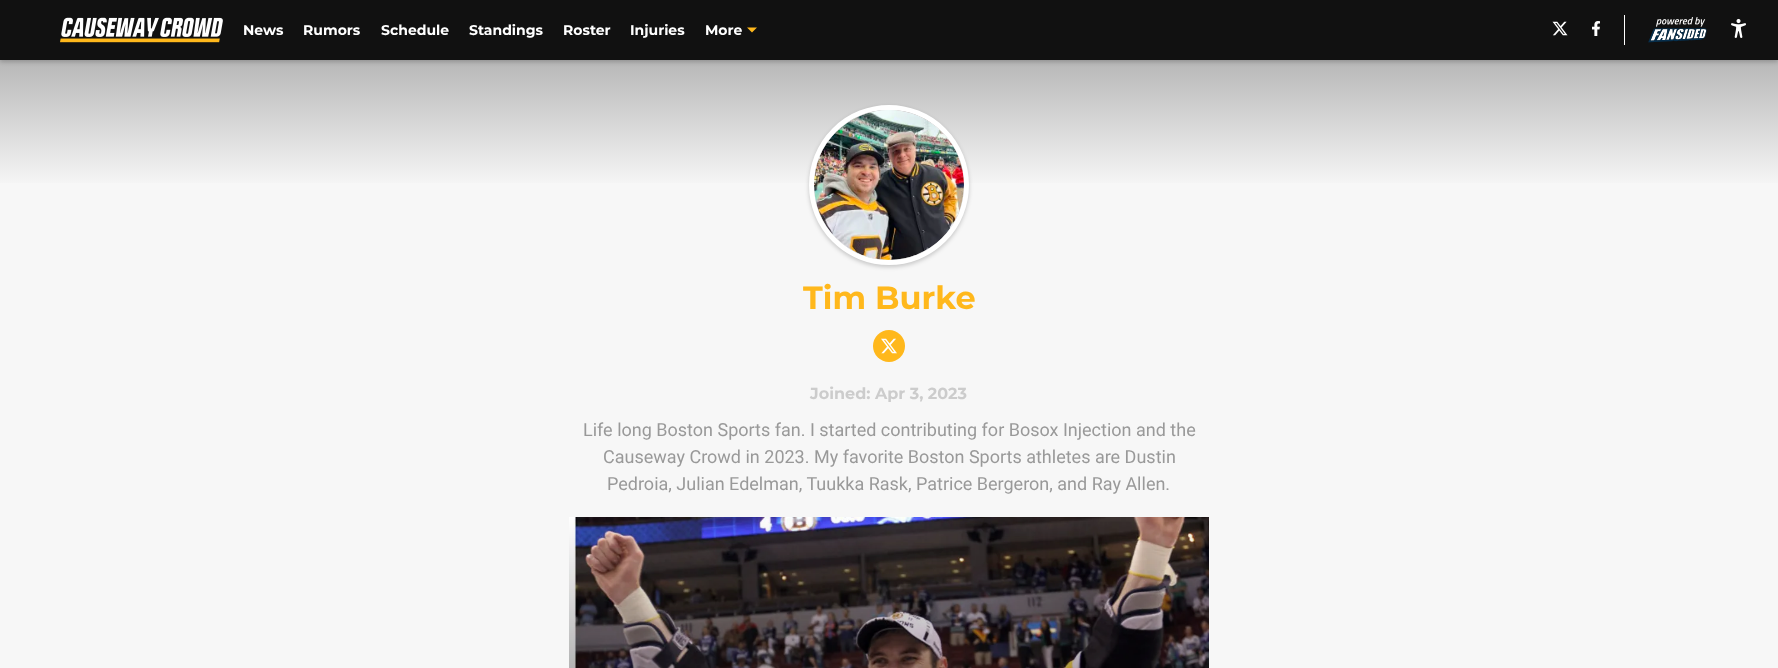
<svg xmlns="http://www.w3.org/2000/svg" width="1778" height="668">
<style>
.a{font:bold 14px Montserrat;fill:#fff}
.b{font:bold 32px Montserrat;fill:#ffb81c}
.c{font:bold 16px Montserrat;fill:#ccc}
.d{font:18px Roboto;fill:#999}
</style>
<defs>
<linearGradient id="g1" gradientUnits="userSpaceOnUse" x1="889" y1="190" x2="889" y2="0"><stop offset="0" stop-color="#f8f8f8"/><stop offset="1" stop-color="#999"/></linearGradient>
</defs>
<rect width="100%" height="100%" fill="#f7f7f7"/>
<path fill="url(#g1)" d="M0 60h1778v123H0z"/>
<path fill="#00000033" filter="blur(2px)" d="M0 2h1778v60H0z"/>
<path fill="#111" d="M0 0h1778v60H0z"/>
<image href="1.png" x="60" y="17" width="163" height="26"/>
<path fill="#ffb81c" fill-rule="evenodd" d="M747 27.5l5 5l5-5z"/>
<image href="2.png" x="1552" y="21" width="16" height="15"/>
<image href="3.png" x="1592" y="21" width="8" height="15"/>
<path fill="#fff" d="M1624 15h1v30H1624z"/>
<image href="4.png" x="1648" y="17" width="59" height="26"/>
<image href="5.png" x="1731" y="18" width="15" height="20"/>
<rect fill="#00000033" filter="blur(2px)" x="809" y="107" width="160" height="160" rx="80"/>
<circle fill="none" stroke="#fff" stroke-width="5" cx="889" cy="185" r="77.5"/>
<circle fill="#f7f7f7" cx="889" cy="185" r="75"/>
<image href="6.png" x="814" y="110" width="150" height="150"/>
<circle fill="#ffb81c" cx="889" cy="346" r="16"/>
<image href="7.png" x="881" y="338" width="16" height="16"/>
<image href="8.png" x="569" y="517" width="640" height="151"/>
<text class="a" x="243" y="35">News</text>
<text class="a" x="303" y="35">Rumors</text>
<text class="a" x="381" y="35">Schedule</text>
<text class="a" x="469" y="35">Standings</text>
<text class="a" x="563" y="35">Roster</text>
<text class="a" x="630" y="35">Injuries</text>
<text class="a" x="705" y="35">More</text>
<text class="b" x="803" y="309">Tim Burke</text>
<text class="c" x="810" y="399">Joined: Apr 3, 2023</text>
<text class="d" x="583" y="436">Life long Boston Sports fan. I started contributing for Bosox Injection and the</text>
<text class="d" x="603" y="463">Causeway Crowd in 2023. My favorite Boston Sports athletes are Dustin</text>
<text class="d" x="607" y="490">Pedroia, Julian Edelman, Tuukka Rask, Patrice Bergeron, and Ray Allen.</text>
</svg>
